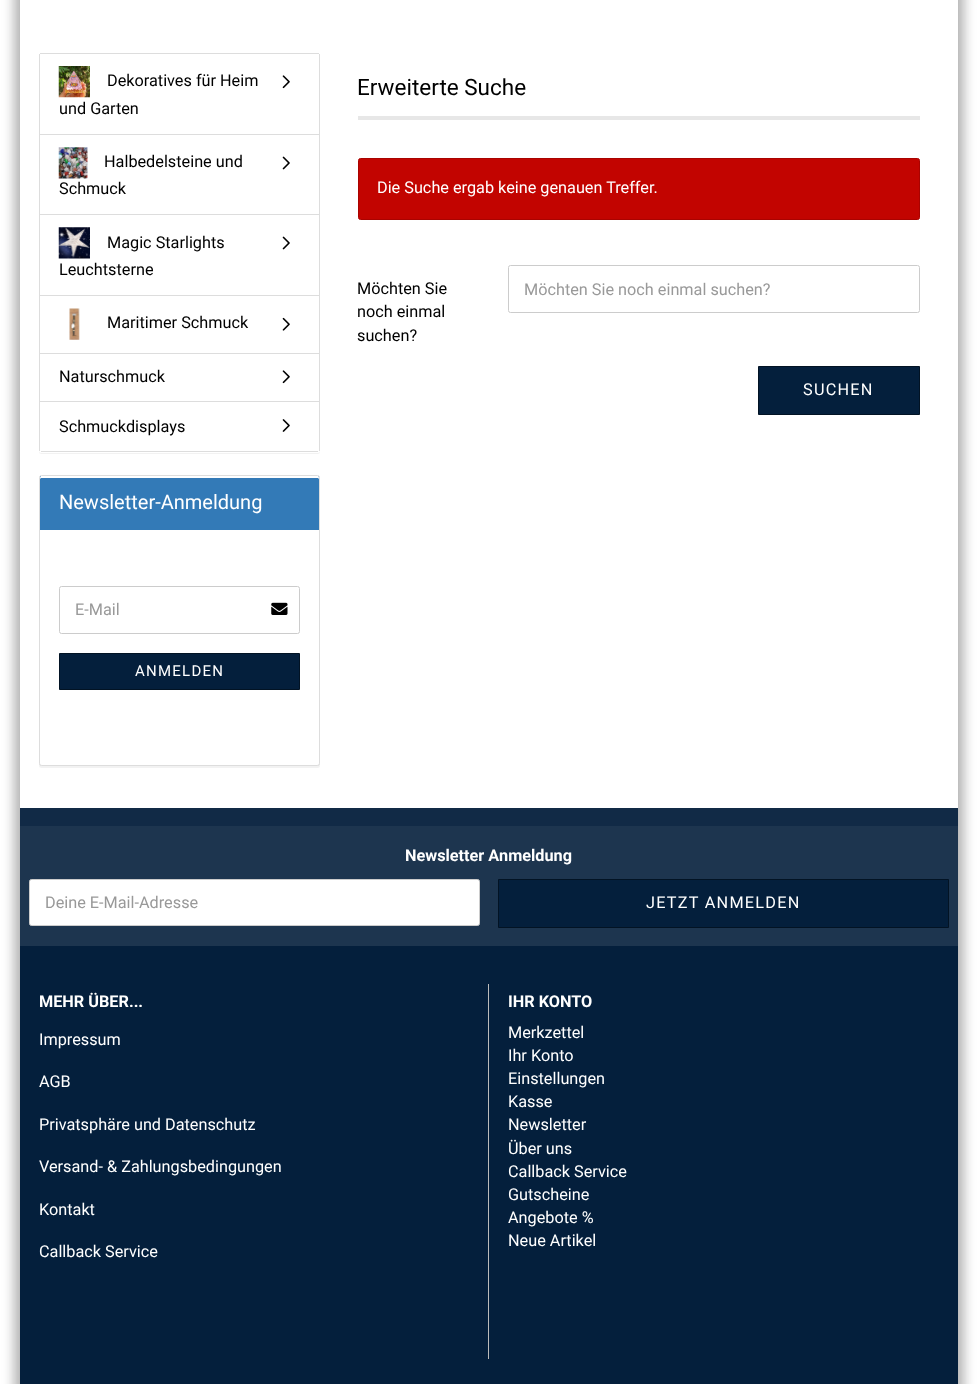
<svg xmlns="http://www.w3.org/2000/svg" width="977" height="1384">
<style>
.a{font:16.25px Roboto;fill:#000}
.b{font:20px Roboto;fill:#fff}
.c{font:16.25px Roboto;fill:#999}
.d{font:15px Roboto;letter-spacing:1.25px;fill:#fff}
.e{font:22.5px Roboto;fill:#000}
.f{font:16.25px Roboto;fill:#fff}
.g{font:16.25px Roboto;letter-spacing:1.25px;fill:#fff}
.h{font:bold 16.25px Roboto;fill:#fff}
</style>
<rect width="100%" height="100%" fill="#fff"/>
<path fill="#b3b3b3" filter="blur(6px)" d="M14 -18h950v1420H14z"/>
<path fill="#fff" d="M20 0h938v808H20z"/>
<rect fill="#0000000d" filter="blur(0.5px)" x="39" y="54" width="281" height="400" rx="2.5"/>
<rect fill="#fff" x="39" y="53" width="281" height="400" rx="2.5"/>
<path fill="#ddd" d="M40 53h279v1H40z"/>
<path fill="#ddd" d="M319 54h1v397H319z"/>
<path fill="#ddd" d="M39 54h1v397H39z"/>
<path fill="#ddd" d="M40 134h279v1H40z"/>
<image href="1.png" x="58" y="66" width="32" height="32"/>
<image href="2.png" x="282" y="75" width="8" height="14"/>
<path fill="#ddd" d="M40 214h279v1H40z"/>
<image href="3.png" x="58" y="147" width="30" height="32"/>
<image href="4.png" x="282" y="156" width="8" height="14"/>
<path fill="#ddd" d="M40 295h279v1H40z"/>
<image href="5.png" x="58" y="227" width="32" height="32"/>
<image href="4.png" x="282" y="236" width="8" height="14"/>
<path fill="#ddd" d="M40 353h279v1H40z"/>
<image href="6.png" x="69" y="308" width="11" height="32"/>
<image href="7.png" x="282" y="317" width="8" height="14"/>
<path fill="#ddd" d="M40 401h279v1H40z"/>
<image href="2.png" x="282" y="370" width="8" height="14"/>
<path fill="#ddd" d="M41 451h277v1H41z"/>
<image href="8.png" x="282" y="419" width="8" height="13"/>
<rect fill="#0000000d" filter="blur(0.5px)" x="39" y="476" width="281" height="292" rx="2.5"/>
<rect fill="none" stroke="#ddd" x="39.5" y="475.5" width="280" height="290" rx="2"/>
<path fill="#337ab7" d="M41 476h277c.5 0 1 .5 1 1v53h-279v-53c0-.5 .5-1 1-1z"/>
<path fill="#fff" d="M41 478h277l1 1c0-1 0-3-1-3h-277c-1 1-1 2-1 3z"/>
<path fill="#fff" d="M40 530h279v232.5c0 1.5-1 2.5-2.5 2.5h-274c-1.5 0-2.5-1-2.5-2.5z"/>
<rect fill="none" stroke="#ccc" x="59.5" y="586.5" width="240" height="47" rx="2"/>
<image href="9.png" x="271" y="602" width="17" height="13"/>
<path fill="#041f3c" stroke="#021324" d="M59.5 653.5h240v36H59.5z"/>
<path fill="#e7e7e7" d="M358 116h562v4H358z"/>
<rect fill="#c20400" stroke="#a90300" x="358.5" y="158.5" width="561" height="61" rx="2"/>
<rect fill="none" stroke="#ccc" x="508.5" y="265.5" width="411" height="47" rx="2"/>
<path fill="#041f3c" stroke="#021324" d="M758.5 366.5h161v48H758.5z"/>
<path fill="#041f3c" d="M20 946h938v438H20z"/>
<path fill="#112a46" d="M20 808h938v18H20z"/>
<path fill="#1d354f" d="M20 826h938v120H20z"/>
<rect fill="#fff" stroke="#ccc" x="29.5" y="879.5" width="450" height="46" rx="2"/>
<path fill="#041f3c" stroke="#021324" d="M498.5 879.5h450v48H498.5z"/>
<path fill="#bbb" d="M488 984h1v375H488z"/>
<text class="a" x="107" y="86">Dekoratives für Heim</text>
<text class="a" x="59" y="114">und Garten</text>
<text class="a" x="104" y="167">Halbedelsteine und</text>
<text class="a" x="59" y="194">Schmuck</text>
<text class="a" x="107" y="248">Magic Starlights</text>
<text class="a" x="59" y="275">Leuchtsterne</text>
<text class="a" x="107" y="328">Maritimer Schmuck</text>
<text class="a" x="59" y="382">Naturschmuck</text>
<text class="a" x="59" y="432">Schmuckdisplays</text>
<text class="b" x="59" y="509">Newsletter-Anmeldung</text>
<text class="c" x="75" y="615">E-Mail</text>
<text class="d" x="135" y="676">ANMELDEN</text>
<text class="e" x="357" y="95">Erweiterte Suche</text>
<text class="f" x="377" y="193">Die Suche ergab keine genauen Treffer.</text>
<text class="a" x="357" y="294">Möchten Sie</text>
<text class="a" x="357" y="317">noch einmal</text>
<text class="a" x="357" y="341">suchen?</text>
<text class="c" x="524" y="295">Möchten Sie noch einmal suchen?</text>
<text class="g" x="803" y="395">SUCHEN</text>
<text class="h" x="405" y="861">Newsletter Anmeldung</text>
<text class="c" x="45" y="908">Deine E-Mail-Adresse</text>
<text class="g" x="646" y="908">JETZT ANMELDEN</text>
<text class="h" x="39" y="1007">MEHR ÜBER...</text>
<text class="f" x="39" y="1045">Impressum</text>
<text class="f" x="39" y="1087">AGB</text>
<text class="f" x="39" y="1130">Privatsphäre und Datenschutz</text>
<text class="f" x="39" y="1172">Versand- &amp; Zahlungsbedingungen</text>
<text class="f" x="39" y="1215">Kontakt</text>
<text class="f" x="39" y="1257">Callback Service</text>
<text class="h" x="508" y="1007">IHR KONTO</text>
<text class="f" x="508" y="1038">Merkzettel</text>
<text class="f" x="508" y="1061">Ihr Konto</text>
<text class="f" x="508" y="1084">Einstellungen</text>
<text class="f" x="508" y="1107">Kasse</text>
<text class="f" x="508" y="1130">Newsletter</text>
<text class="f" x="508" y="1154">Über uns</text>
<text class="f" x="508" y="1177">Callback Service</text>
<text class="f" x="508" y="1200">Gutscheine</text>
<text class="f" x="508" y="1223">Angebote %</text>
<text class="f" x="508" y="1246">Neue Artikel</text>
</svg>
